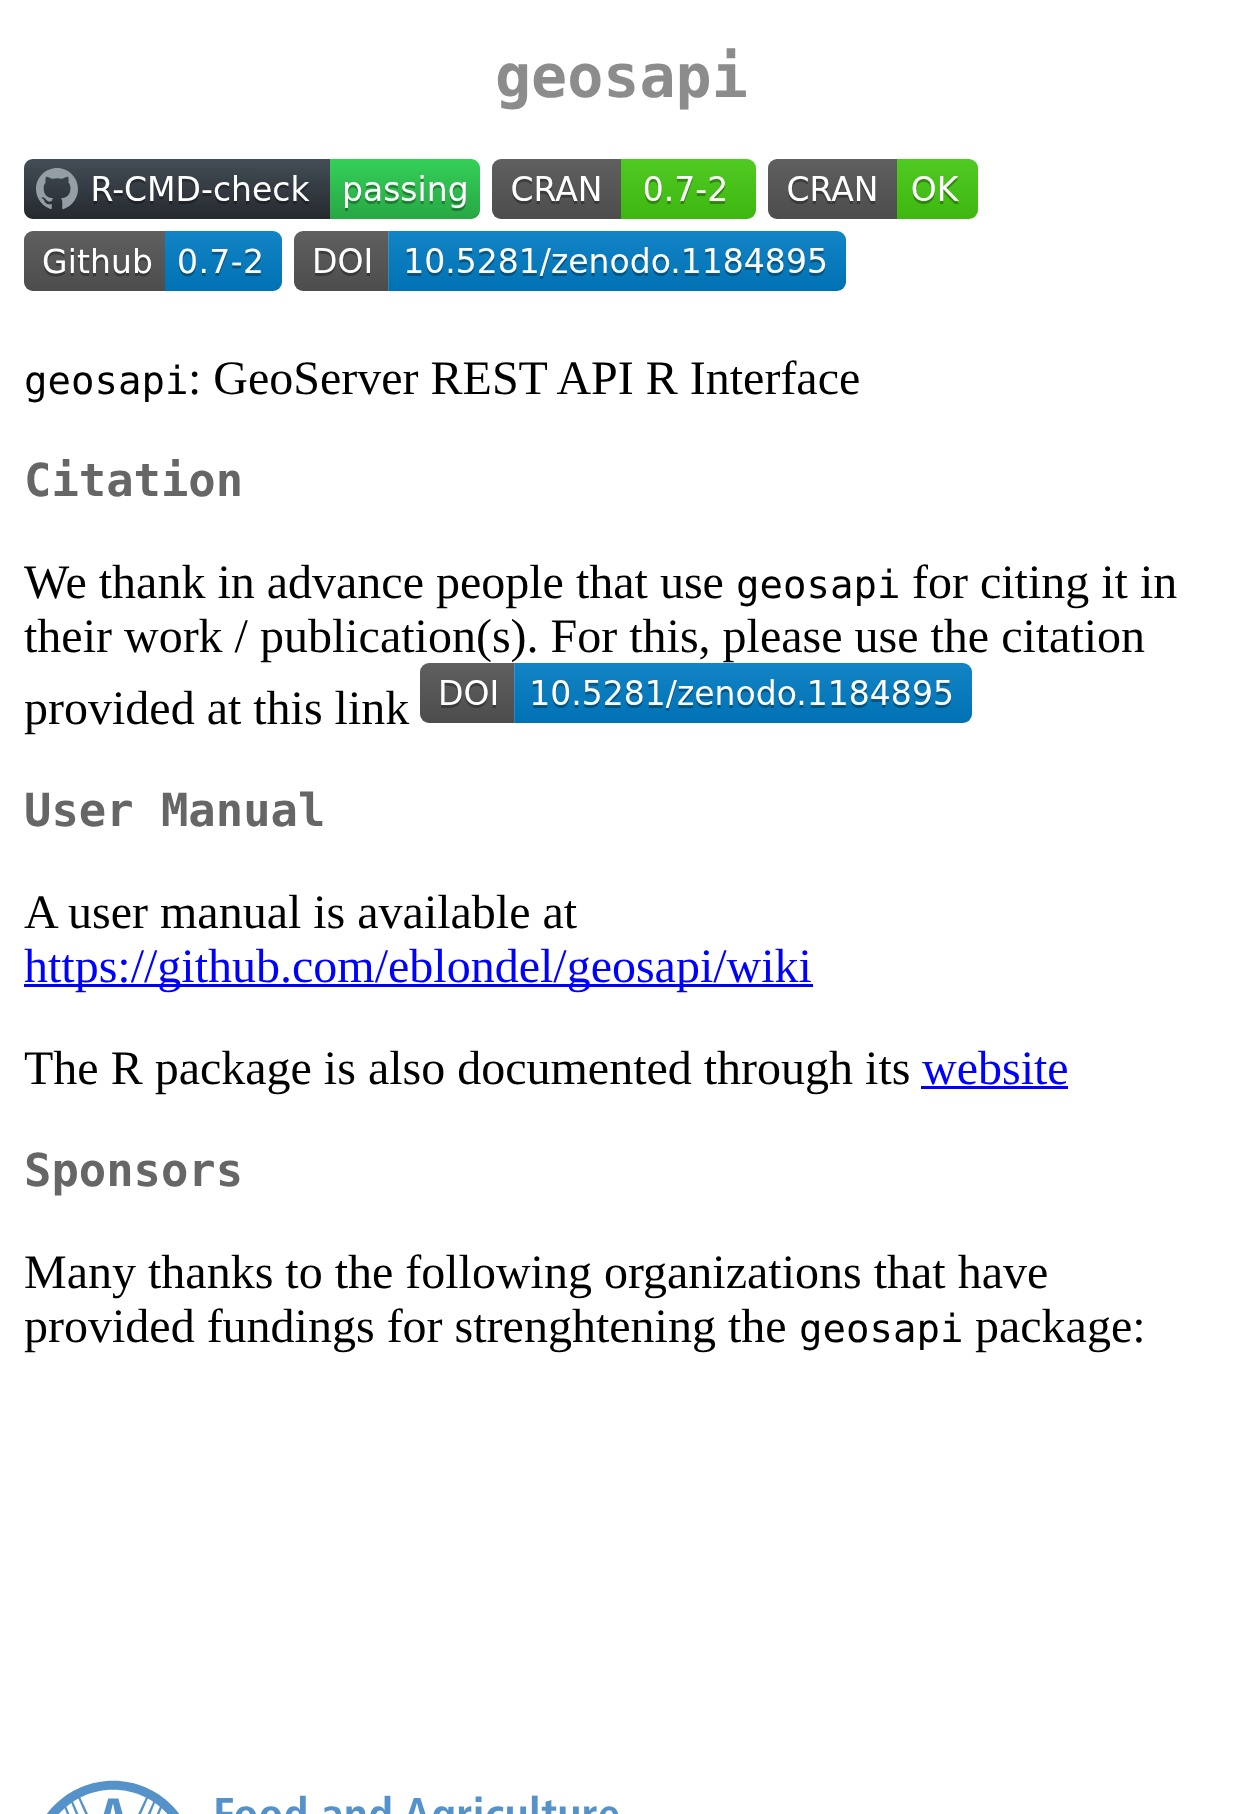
<svg xmlns="http://www.w3.org/2000/svg" width="1240" height="1814">
<style>
.a{font:bold 60px DejaVu Sans Mono;fill:#8c8c8c}
.b{font:39px DejaVu Sans Mono;fill:#000}
.c{font:48px Liberation Serif;fill:#000}
.d{font:bold 45.5px DejaVu Sans Mono;fill:#666}
.e{font:48px Liberation Serif;fill:#00f}
</style>
<rect width="100%" height="100%" fill="#fff"/>
<image href="1.png" x="24" y="159" width="456" height="60"/>
<image href="2.png" x="492" y="159" width="264" height="60"/>
<image href="3.png" x="768" y="159" width="210" height="60"/>
<image href="4.png" x="24" y="231" width="258" height="60"/>
<image href="5.png" x="294" y="231" width="552" height="60"/>
<image href="6.png" x="420" y="663" width="552" height="60"/>
<path fill="#00f" d="M24 984h789v3H24z"/>
<path fill="#00f" d="M921 1086h147v3H921z"/>
<image href="7.png" x="46" y="1780" width="573" height="34"/>
<text class="a" x="495" y="97">geosapi</text>
<text class="b" x="24" y="394">geosapi</text>
<text class="c" x="188" y="394">: GeoServer REST API R Interface</text>
<text class="d" x="24" y="496">Citation</text>
<text class="c" x="24" y="598">We thank in advance people that use</text>
<text class="b" x="736" y="598">geosapi</text>
<text class="c" x="912" y="598">for citing it in</text>
<text class="c" x="24" y="652">their work / publication(s). For this, please use the citation</text>
<text class="c" x="24" y="724">provided at this link</text>
<text class="d" x="24" y="826">User Manual</text>
<text class="c" x="24" y="928">A user manual is available at</text>
<text class="e" x="24" y="982">https://github.com/eblondel/geosapi/wiki</text>
<text class="c" x="24" y="1084">The R package is also documented through its</text>
<text class="e" x="922" y="1084">website</text>
<text class="d" x="24" y="1186">Sponsors</text>
<text class="c" x="24" y="1288">Many thanks to the following organizations that have</text>
<text class="c" x="24" y="1342">provided fundings for strenghtening the</text>
<text class="b" x="799" y="1342">geosapi</text>
<text class="c" x="975" y="1342">package:</text>
</svg>
